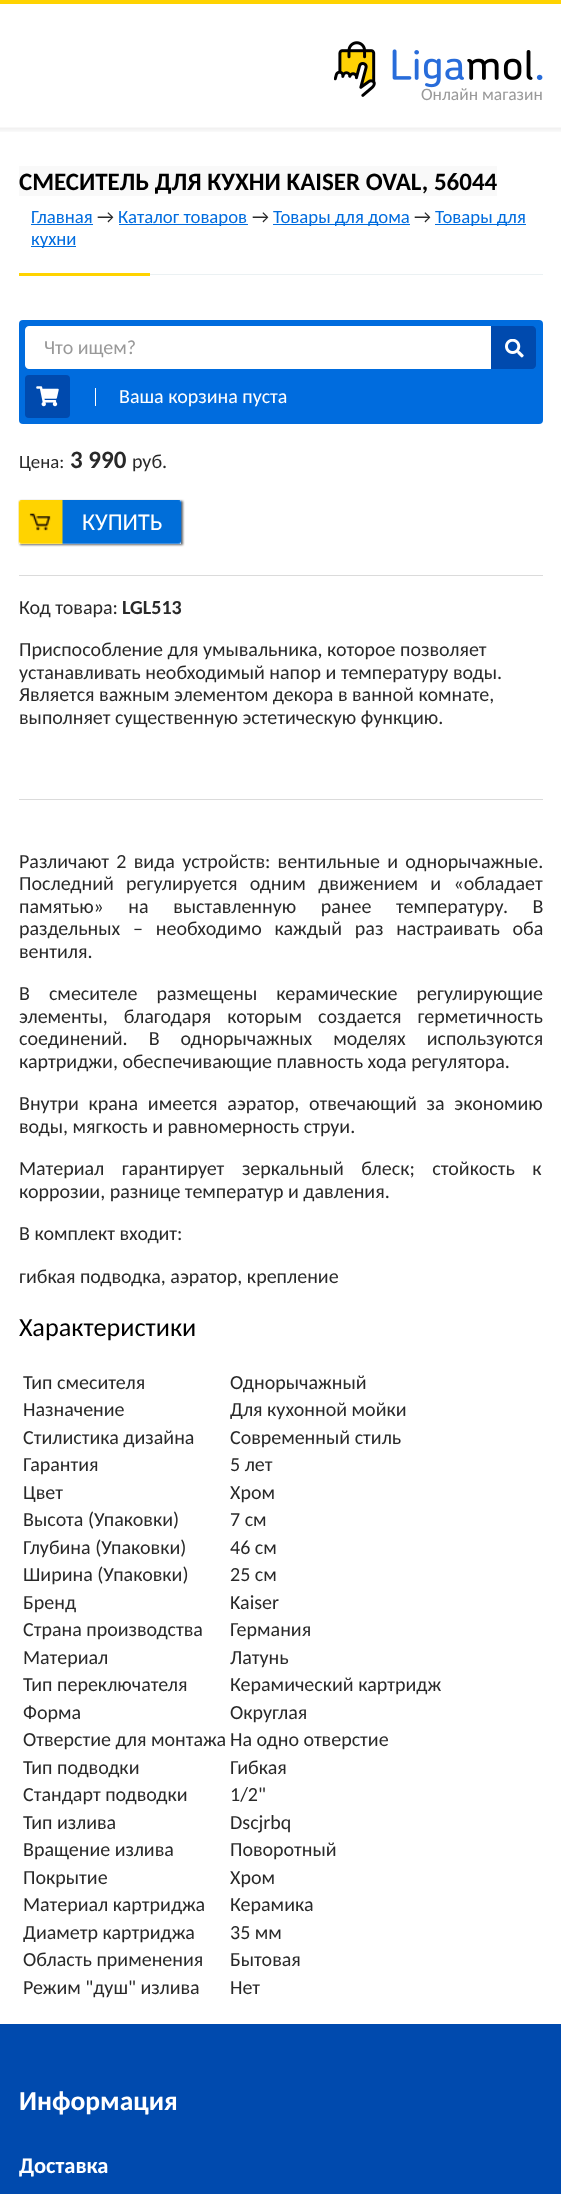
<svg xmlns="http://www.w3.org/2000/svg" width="561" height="2194">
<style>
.a{font:17.5px Carlito;fill:#999}
.b{font:bold 25px Carlito;fill:#000}
.c{font:18.75px Carlito;fill:#006cde}
.d{font:18.75px Carlito;fill:#292929}
.e{font:20px Carlito;fill:#999}
.f{font:20px Carlito;fill:#fff}
.g{font:bold 25px Carlito;fill:#292929}
.h{font:20px Carlito;fill:#292929}
.i{font:24px Carlito;fill:#fff}
.j{font:bold 20px Carlito;fill:#292929}
.k{font:26.25px Carlito;fill:#000}
.l{font:bold 27.5px Carlito;fill:#fff}
.m{font:bold 22.5px Carlito;fill:#fff}
</style>
<defs>
<clipPath id="clip1"><path d="M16 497h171v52h-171zm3 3h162v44h-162z" clip-rule="evenodd"/></clipPath>
</defs>
<rect width="100%" height="100%" fill="#fff"/>
<image href="1.png" x="0" y="127" width="561" height="5"/>
<path fill="#ffd300" d="M0 0h561v4H0z"/>
<image href="2.png" x="334" y="41" width="209" height="56"/>
<path fill="#f9f9f9" d="M19 166h478v30H19z"/>
<path fill="#006cde" d="M31 224h62v1H31z"/>
<path fill="#006cde" d="M119 224h129v1H119z"/>
<path fill="#006cde" d="M273 224h137v1H273z"/>
<path fill="#006cde" d="M435 224h91v1H435z"/>
<path fill="#006cde" d="M31 246h45v1H31z"/>
<path fill="#ffd300" d="M19 273h131v3H19z"/>
<path fill="#ebf1f3" d="M150 274h393v1H150z"/>
<rect fill="#006cde" x="19" y="320" width="524" height="104" rx="4"/>
<path fill="#fff" d="M29 326h462v43h-462c-2 0-4-2-4-4v-35c0-2 2-4 4-4z"/>
<path fill="#004aae" d="M491 326h41c2 0 4 2 4 4v35c0 2-2 4-4 4h-41z"/>
<image href="3.png" x="505" y="339" width="19" height="19"/>
<path fill="#fff" d="M95 388h1v18H95z"/>
<rect fill="#004aae" x="25" y="375" width="45" height="43" rx="4"/>
<image href="4.png" x="36" y="386" width="23" height="21"/>
<path fill="#dbdbdb" d="M19 575h524v1H19z"/>
<g clip-path="url(#clip1)">
<path fill="#00000096" filter="blur(1px)" d="M20 501h163v44H20z"/>
</g>
<image href="5.png" x="18" y="500" width="164" height="44"/>
<path fill="#dbdbdb" d="M19 799h524v1H19z"/>
<path fill="#004aae" d="M0 2024h561v170H0z"/>
<text class="a" x="421" y="100">Онлайн магазин</text>
<text class="b" x="19" y="190">СМЕСИТЕЛЬ ДЛЯ КУХНИ KAISER OVAL, 56044</text>
<text class="c" x="31" y="223">Главная</text>
<text class="d" x="97" y="223">→</text>
<text class="c" x="118" y="223">Каталог товаров</text>
<text class="d" x="252" y="223">→</text>
<text class="c" x="273" y="223">Товары для дома</text>
<text class="d" x="414" y="223">→</text>
<text class="c" x="435" y="223">Товары для</text>
<text class="c" x="31" y="245">кухни</text>
<text class="e" x="44" y="354">Что ищем?</text>
<text class="f" x="119" y="403">Ваша корзина пуста</text>
<text class="d" x="19" y="468">Цена:</text>
<text class="g" x="70" y="468">3 990</text>
<text class="h" x="132" y="468">руб.</text>
<text class="i" x="82" y="530">КУПИТЬ</text>
<text class="h" x="19" y="614">Код товара:</text>
<text class="j" x="122" y="614">LGL513</text>
<text class="h" x="19" y="656">Приспособление для умывальника, которое позволяет</text>
<text class="h" x="19" y="679">устанавливать необходимый напор и температуру воды.</text>
<text class="h" x="19" y="701">Является важным элементом декора в ванной комнате,</text>
<text class="h" x="19" y="724">выполняет существенную эстетическую функцию.</text>
<text class="h" x="19" y="868" word-spacing="2.75">Различают 2 вида устройств: вентильные и однорычажные.</text>
<text class="h" x="19" y="890" word-spacing="7.75">Последний регулируется одним движением и «обладает</text>
<text class="h" x="19" y="913" word-spacing="20">памятью» на выставленную ранее температуру. В</text>
<text class="h" x="19" y="935" word-spacing="8.25">раздельных – необходимо каждый раз настраивать оба</text>
<text class="h" x="19" y="958">вентиля.</text>
<text class="h" x="19" y="1000" word-spacing="14.5">В смесителе размещены керамические регулирующие</text>
<text class="h" x="19" y="1023" word-spacing="11.5">элементы, благодаря которым создается герметичность</text>
<text class="h" x="19" y="1045" word-spacing="16.5">соединений. В однорычажных моделях используются</text>
<text class="h" x="19" y="1068">картриджи, обеспечивающие плавность хода регулятора.</text>
<text class="h" x="19" y="1110" word-spacing="5.25">Внутри крана имеется аэратор, отвечающий за экономию</text>
<text class="h" x="19" y="1133">воды, мягкость и равномерность струи.</text>
<text class="h" x="19" y="1175" word-spacing="13">Материал гарантирует зеркальный блеск; стойкость к</text>
<text class="h" x="19" y="1198">коррозии, разнице температур и давления.</text>
<text class="h" x="19" y="1240">В комплект входит:</text>
<text class="h" x="19" y="1283">гибкая подводка, аэратор, крепление</text>
<text class="k" x="19" y="1336">Характеристики</text>
<text class="h" x="23" y="1389">Тип смесителя</text>
<text class="h" x="230" y="1389">Однорычажный</text>
<text class="h" x="23" y="1416">Назначение</text>
<text class="h" x="230" y="1416">Для кухонной мойки</text>
<text class="h" x="23" y="1444">Стилистика дизайна</text>
<text class="h" x="230" y="1444">Современный стиль</text>
<text class="h" x="23" y="1471">Гарантия</text>
<text class="h" x="230" y="1471">5 лет</text>
<text class="h" x="23" y="1499">Цвет</text>
<text class="h" x="230" y="1499">Хром</text>
<text class="h" x="23" y="1526">Высота (Упаковки)</text>
<text class="h" x="230" y="1526">7 см</text>
<text class="h" x="23" y="1554">Глубина (Упаковки)</text>
<text class="h" x="230" y="1554">46 см</text>
<text class="h" x="23" y="1581">Ширина (Упаковки)</text>
<text class="h" x="230" y="1581">25 см</text>
<text class="h" x="23" y="1609">Бренд</text>
<text class="h" x="230" y="1609">Kaiser</text>
<text class="h" x="23" y="1636">Страна производства</text>
<text class="h" x="230" y="1636">Германия</text>
<text class="h" x="23" y="1664">Материал</text>
<text class="h" x="230" y="1664">Латунь</text>
<text class="h" x="23" y="1691">Тип переключателя</text>
<text class="h" x="230" y="1691">Керамический картридж</text>
<text class="h" x="23" y="1719">Форма</text>
<text class="h" x="230" y="1719">Округлая</text>
<text class="h" x="23" y="1746">Отверстие для монтажа</text>
<text class="h" x="230" y="1746">На одно отверстие</text>
<text class="h" x="23" y="1774">Тип подводки</text>
<text class="h" x="230" y="1774">Гибкая</text>
<text class="h" x="23" y="1801">Стандарт подводки</text>
<text class="h" x="230" y="1801">1/2"</text>
<text class="h" x="23" y="1829">Тип излива</text>
<text class="h" x="230" y="1829">Dscjrbq</text>
<text class="h" x="23" y="1856">Вращение излива</text>
<text class="h" x="230" y="1856">Поворотный</text>
<text class="h" x="23" y="1884">Покрытие</text>
<text class="h" x="230" y="1884">Хром</text>
<text class="h" x="23" y="1911">Материал картриджа</text>
<text class="h" x="230" y="1911">Керамика</text>
<text class="h" x="23" y="1939">Диаметр картриджа</text>
<text class="h" x="230" y="1939">35 мм</text>
<text class="h" x="23" y="1966">Область применения</text>
<text class="h" x="230" y="1966">Бытовая</text>
<text class="h" x="23" y="1994">Режим "душ" излива</text>
<text class="h" x="230" y="1994">Нет</text>
<text class="l" x="19" y="2110">Информация</text>
<text class="m" x="19" y="2173">Доставка</text>
</svg>
